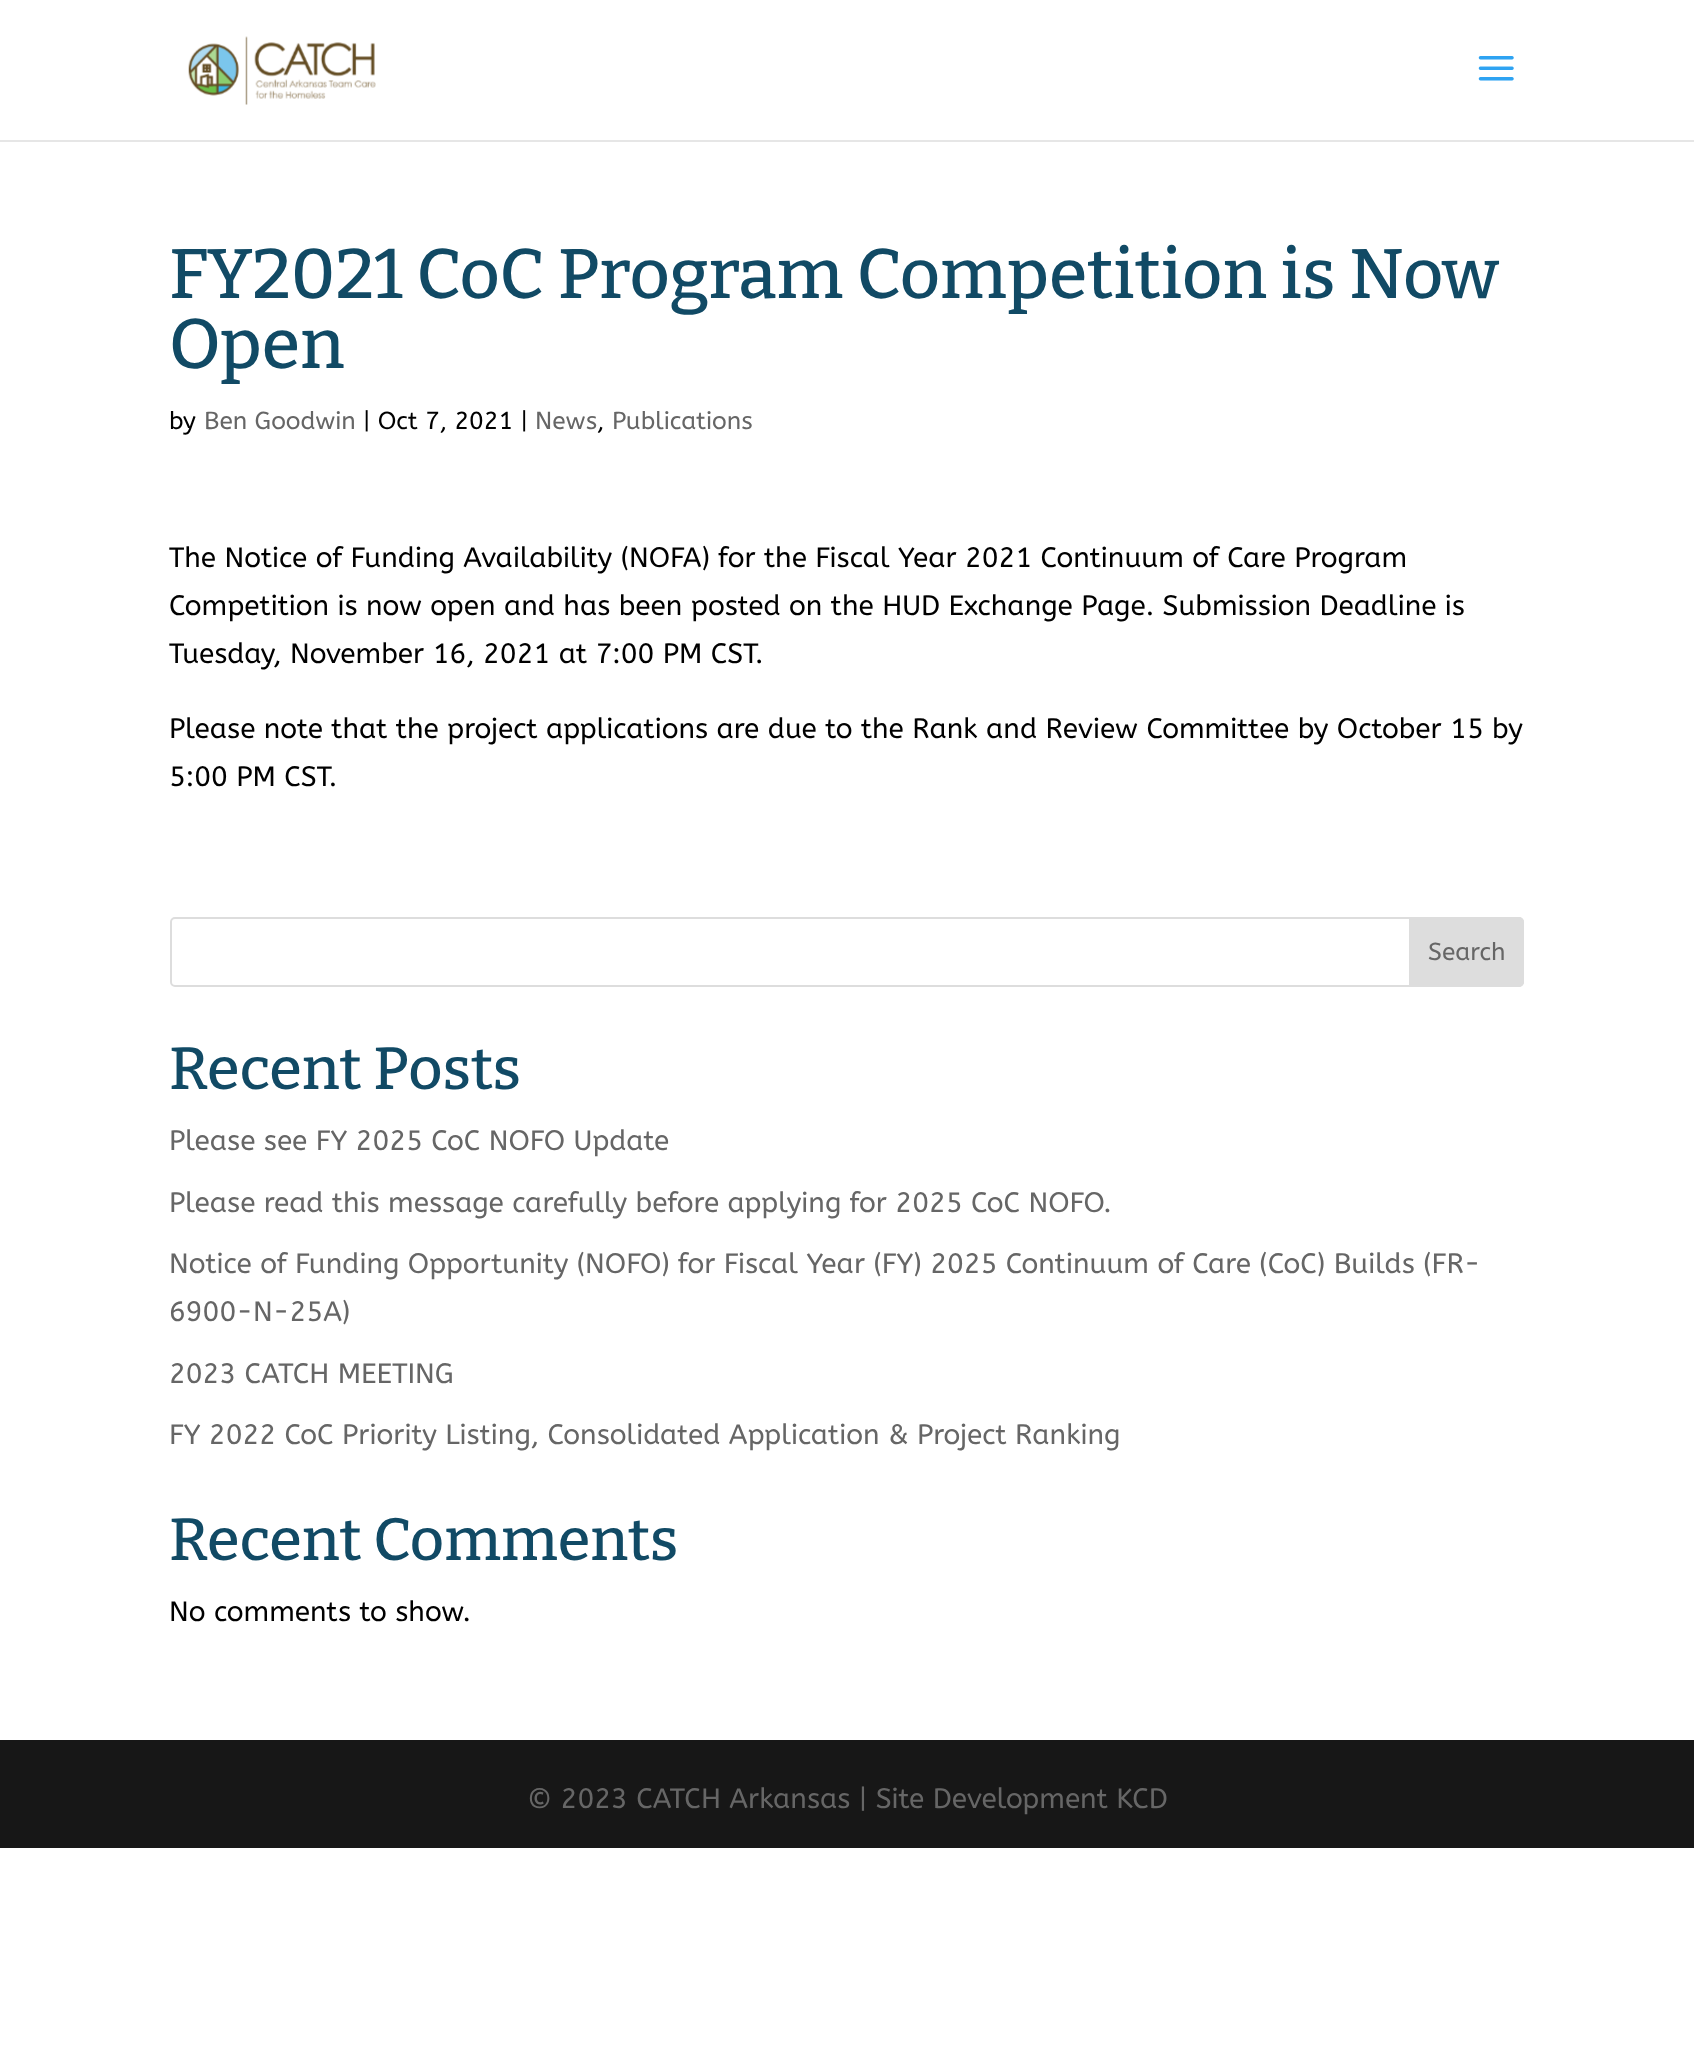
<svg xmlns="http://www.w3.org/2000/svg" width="1694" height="2071">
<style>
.a{font:500 70px Bitter;fill:#114a65}
.b{font:24.5px ABeeZee;fill:#000}
.c{font:24.5px ABeeZee;fill:#666}
.d{font:28px ABeeZee;fill:#000}
.e{font:500 59.5px Bitter;fill:#114a65}
.f{font:28px ABeeZee;fill:#666}
</style>
<rect width="100%" height="100%" fill="#fff"/>
<path fill="#e6e6e6" d="M0 140h1694v2H0z"/>
<image href="1.png" x="188" y="36" width="188" height="69"/>
<image href="2.png" x="1478" y="56" width="36" height="25"/>
<rect fill="none" stroke="#ddd" stroke-width="2" x="171" y="918" width="1352" height="68" rx="4"/>
<path fill="#ddd" stroke="#ddd" stroke-width="2" d="M1410 918h109c2 0 4 2 4 4v60c0 2-2 4-4 4h-109z"/>
<path fill="#171717" d="M0 1740h1694v108H0z"/>
<text class="a" x="169" y="298">FY2021 CoC Program Competition is Now</text>
<text class="a" x="169" y="368">Open</text>
<text class="b" x="169" y="429">by</text>
<text class="c" x="204" y="429">Ben Goodwin</text>
<text class="b" x="363" y="429">| Oct 7, 2021 |</text>
<text class="c" x="535" y="429">News</text>
<text class="b" x="597" y="429">,</text>
<text class="c" x="612" y="429">Publications</text>
<text class="d" x="169" y="567">The Notice of Funding Availability (NOFA) for the Fiscal Year 2021 Continuum of Care Program</text>
<text class="d" x="169" y="615">Competition is now open and has been posted on the HUD Exchange Page. Submission Deadline is</text>
<text class="d" x="169" y="663">Tuesday, November 16, 2021 at 7:00 PM CST.</text>
<text class="d" x="169" y="738">Please note that the project applications are due to the Rank and Review Committee by October 15 by</text>
<text class="d" x="169" y="786">5:00 PM CST.</text>
<text class="c" x="1428" y="960">Search</text>
<text class="e" x="169" y="1089">Recent Posts</text>
<text class="f" x="169" y="1150">Please see FY 2025 CoC NOFO Update</text>
<text class="f" x="169" y="1212">Please read this message carefully before applying for 2025 CoC NOFO.</text>
<text class="f" x="169" y="1273">Notice of Funding Opportunity (NOFO) for Fiscal Year (FY) 2025 Continuum of Care (CoC) Builds (FR-</text>
<text class="f" x="169" y="1321">6900-N-25A)</text>
<text class="f" x="169" y="1383">2023 CATCH MEETING</text>
<text class="f" x="169" y="1444">FY 2022 CoC Priority Listing, Consolidated Application &amp; Project Ranking</text>
<text class="e" x="169" y="1560">Recent Comments</text>
<text class="d" x="169" y="1621">No comments to show.</text>
<text class="f" x="527" y="1808">© 2023 CATCH Arkansas | Site Development KCD</text>
</svg>
